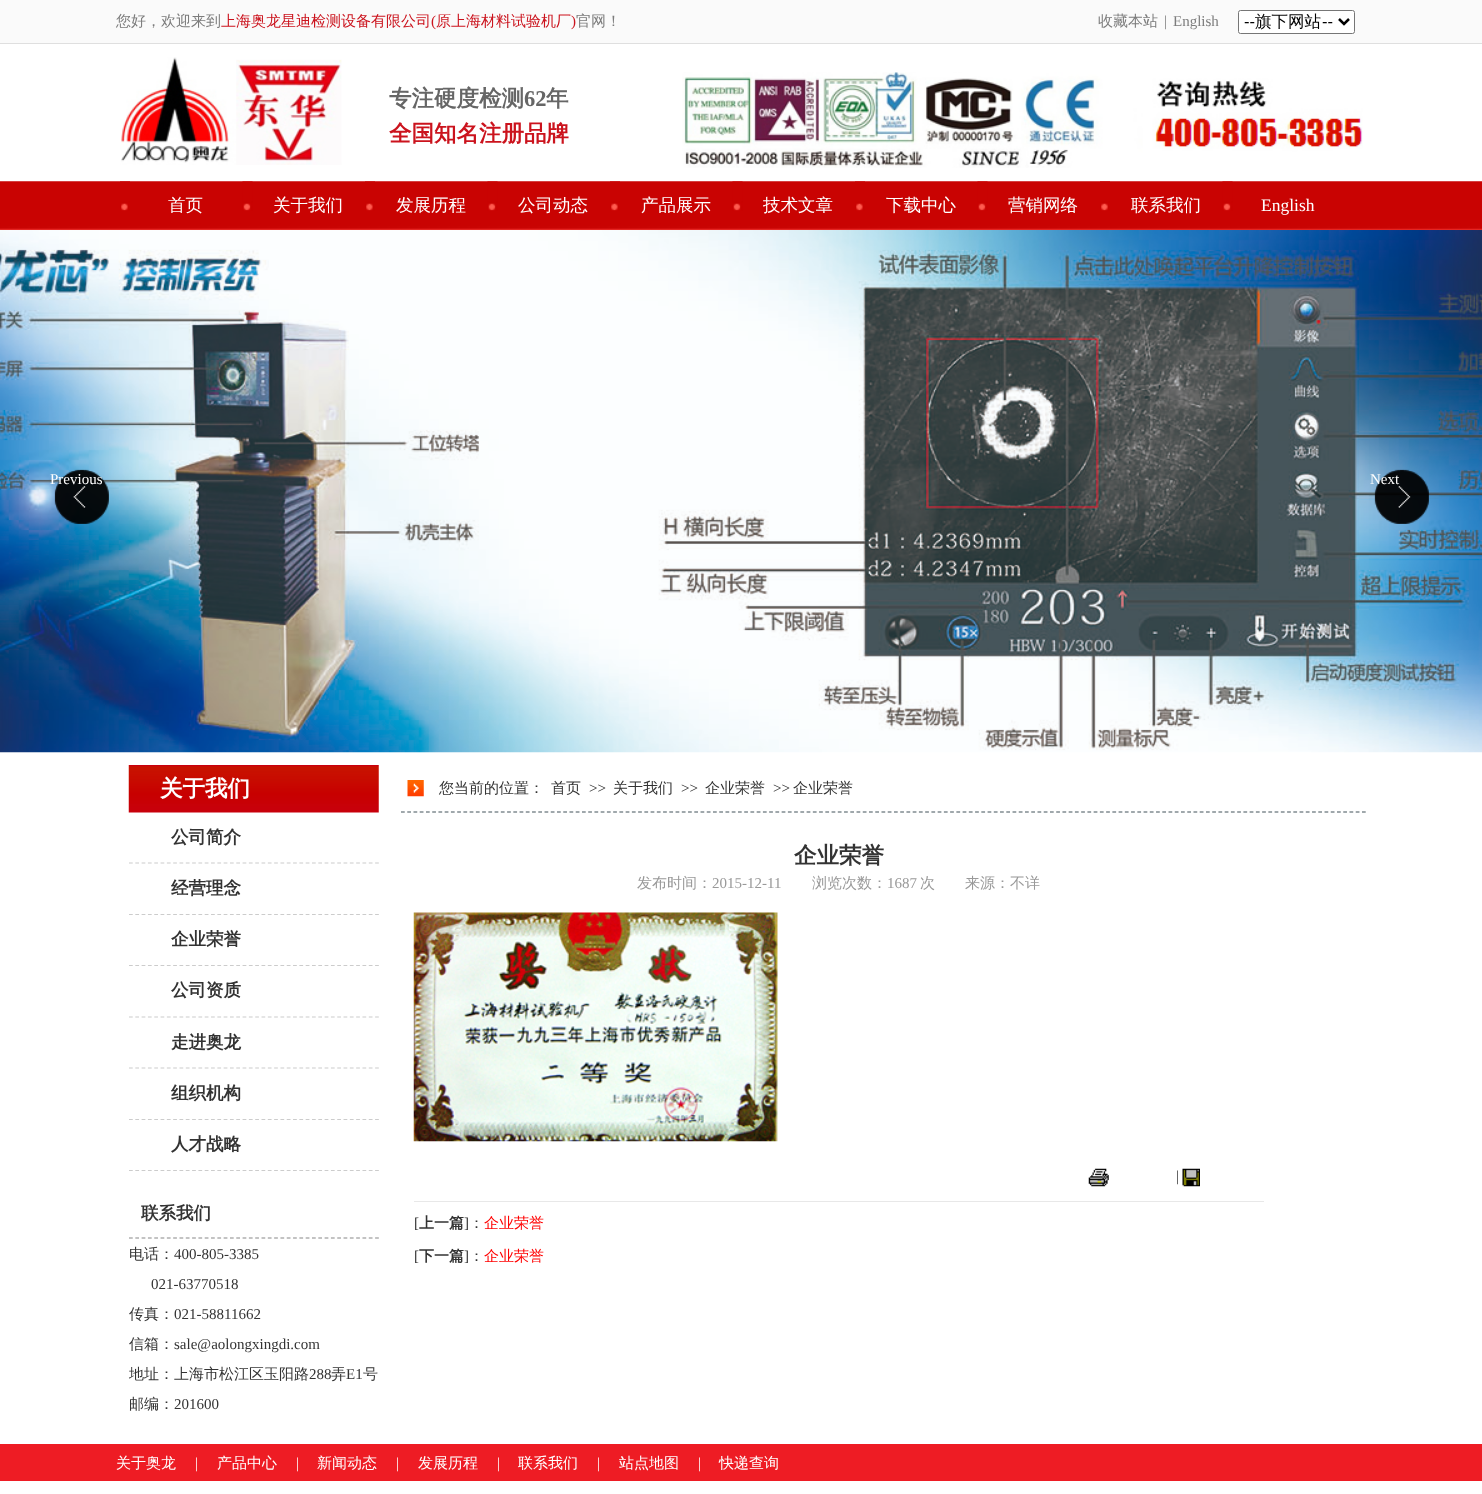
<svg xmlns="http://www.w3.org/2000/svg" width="1482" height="1494">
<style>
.a{font:500 15px WenQuanYi Zen Hei;fill:#7c7c7c}
.b{font:500 15px WenQuanYi Zen Hei;fill:#cb131d}
.c{font:15px Liberation Serif;fill:#cb131d}
.d{font:15px Liberation Serif;fill:#7c7c7c}
.e{font:16.5px Liberation Sans;fill:#000}
.f{font:500 16.5px WenQuanYi Zen Hei;fill:#000}
.g{font:bold 22.5px WenQuanYi Zen Hei;fill:#666}
.h{font:bold 22.5px Liberation Serif;fill:#666}
.i{font:bold 22.5px WenQuanYi Zen Hei;fill:#cb131d}
.j{font:500 17.5px WenQuanYi Zen Hei;fill:#fff}
.k{font:17.5px Liberation Serif;fill:#fff}
.l{font:15px Liberation Serif;fill:#fff}
.m{font:bold 22.5px WenQuanYi Zen Hei;fill:#fff}
.n{font:bold 17.5px WenQuanYi Zen Hei;fill:#333}
.o{font:500 15px WenQuanYi Zen Hei;fill:#333}
.p{font:15px Liberation Serif;fill:#333}
.q{font:bold 22.5px WenQuanYi Zen Hei;fill:#333}
.r{font:500 15px WenQuanYi Zen Hei;fill:#999}
.s{font:15px Liberation Serif;fill:#999}
.t{font:bold 15px WenQuanYi Zen Hei;fill:#333}
.u{font:500 15px WenQuanYi Zen Hei;fill:#f00}
.v{font:500 15px WenQuanYi Zen Hei;fill:#fff}
</style>
<rect width="100%" height="100%" fill="#fff"/>
<path fill="#fafafa" d="M0 0h1482v43H0z"/>
<path fill="#dfdfdf" d="M0 43h1482v1H0z"/>
<rect fill="#fff" stroke="#767676" x="1238.5" y="10.5" width="116" height="23" rx="2"/>
<path fill="none" stroke="#000" stroke-width="2.5" d="M1339 19l5 5l5-5"/>
<image href="1.png" x="120" y="57" width="222" height="108"/>
<image href="2.png" x="682" y="72" width="681" height="96"/>
<image href="3.png" x="0" y="181" width="1482" height="49"/>
<image href="4.png" x="120" y="181" width="10" height="30"/>
<image href="5.png" x="242" y="181" width="11" height="30"/>
<image href="4.png" x="365" y="181" width="10" height="30"/>
<image href="5.png" x="487" y="181" width="11" height="30"/>
<image href="4.png" x="610" y="181" width="10" height="30"/>
<image href="5.png" x="732" y="181" width="11" height="30"/>
<image href="4.png" x="855" y="181" width="10" height="30"/>
<image href="6.png" x="977" y="181" width="11" height="30"/>
<image href="7.png" x="1100" y="181" width="10" height="30"/>
<image href="5.png" x="1222" y="181" width="11" height="30"/>
<image href="8.png" x="0" y="230" width="1482" height="523"/>
<image href="9.png" x="54" y="469" width="55" height="55"/>
<image href="10.png" x="1374" y="469" width="55" height="55"/>
<image href="11.png" x="54" y="469" width="55" height="55"/>
<image href="12.png" x="1374" y="469" width="55" height="55"/>
<image href="13.png" x="128" y="765" width="251" height="48"/>
<path fill="none" stroke="#ccc" stroke-width="1.2" stroke-dasharray="3.75 2.56" d="M129 863h250"/>
<path fill="none" stroke="#ccc" stroke-width="1.2" stroke-dasharray="3.75 2.56" d="M129 914.5h250"/>
<path fill="#fff" d="M129 915h250v1H129z"/>
<path fill="none" stroke="#ccc" stroke-width="1.2" stroke-dasharray="3.75 2.56" d="M129 965.5h250"/>
<path fill="#fff" d="M129 966h250v1H129z"/>
<path fill="none" stroke="#ccc" stroke-width="1.2" stroke-dasharray="3.75 2.56" d="M129 1017h250"/>
<path fill="none" stroke="#ccc" stroke-width="1.2" stroke-dasharray="3.75 2.56" d="M129 1068h250"/>
<path fill="none" stroke="#ccc" stroke-width="1.2" stroke-dasharray="3.75 2.56" d="M129 1119.5h250"/>
<path fill="#fff" d="M129 1120h250v1H129z"/>
<path fill="none" stroke="#ccc" stroke-width="1.2" stroke-dasharray="3.75 2.56" d="M129 1170.5h250"/>
<path fill="none" stroke="#888" stroke-width="1.2" stroke-dasharray="3.75 2.56" d="M129 1238h250"/>
<image href="14.png" x="407" y="780" width="17" height="17"/>
<path fill="none" stroke="#42535a" stroke-width="1.2" stroke-dasharray="3.75 2.49" d="M401 812h965"/>
<image href="15.png" x="413" y="912" width="365" height="230"/>
<image href="16.png" x="1088" y="1168" width="21" height="19"/>
<image href="17.png" x="1182" y="1168" width="18" height="19"/>
<path fill="#e8e8e8" d="M414 1201h850v1H414z"/>
<path fill="#ee1c24" d="M0 1444h1482v37H0z"/>
<text class="a" x="116" y="26">您好，欢迎来到</text>
<text class="b" x="221" y="26">上海奥龙星迪检测设备有限公司</text>
<text class="c" x="431" y="26">(</text>
<text class="b" x="436" y="26">原上海材料试验机厂</text>
<text class="c" x="571" y="26">)</text>
<text class="a" x="576" y="26">官网！</text>
<text class="a" x="1098" y="26">收藏本站</text>
<text class="d" x="1164" y="26">|</text>
<text class="d" x="1173" y="26">English</text>
<text class="e" x="1244" y="27">--</text>
<text class="f" x="1255" y="27">旗下网站</text>
<text class="e" x="1322" y="27">--</text>
<text class="g" x="389" y="106">专注硬度检测</text>
<text class="h" x="524" y="106">62</text>
<text class="g" x="546" y="106">年</text>
<text class="i" x="389" y="141">全国知名注册品牌</text>
<text class="j" x="168" y="211">首页</text>
<text class="j" x="273" y="211">关于我们</text>
<text class="j" x="396" y="211">发展历程</text>
<text class="j" x="518" y="211">公司动态</text>
<text class="j" x="641" y="211">产品展示</text>
<text class="j" x="763" y="211">技术文章</text>
<text class="j" x="886" y="211">下载中心</text>
<text class="j" x="1008" y="211">营销网络</text>
<text class="j" x="1131" y="211">联系我们</text>
<text class="k" x="1261" y="211">English</text>
<text class="l" x="50" y="484">Previous</text>
<text class="l" x="1370" y="484">Next</text>
<text class="m" x="160" y="796">关于我们</text>
<text class="n" x="171" y="843">公司简介</text>
<text class="n" x="171" y="894">经营理念</text>
<text class="n" x="171" y="945">企业荣誉</text>
<text class="n" x="171" y="996">公司资质</text>
<text class="n" x="171" y="1048">走进奥龙</text>
<text class="n" x="171" y="1099">组织机构</text>
<text class="n" x="171" y="1150">人才战略</text>
<text class="n" x="141" y="1219">联系我们</text>
<text class="o" x="129" y="1259">电话：</text>
<text class="p" x="174" y="1259">400-805-3385</text>
<text class="p" x="151" y="1289">021-63770518</text>
<text class="o" x="129" y="1319">传真：</text>
<text class="p" x="174" y="1319">021-58811662</text>
<text class="o" x="129" y="1349">信箱：</text>
<text class="p" x="174" y="1349">sale@aolongxingdi.com</text>
<text class="o" x="129" y="1379">地址：上海市松江区玉阳路</text>
<text class="p" x="309" y="1379">288</text>
<text class="o" x="331" y="1379">弄</text>
<text class="p" x="346" y="1379">E1</text>
<text class="o" x="363" y="1379">号</text>
<text class="o" x="129" y="1409">邮编：</text>
<text class="p" x="174" y="1409">201600</text>
<text class="o" x="439" y="793">您当前的位置：</text>
<text class="o" x="551" y="793">首页</text>
<text class="p" x="589" y="793">&gt;&gt;</text>
<text class="o" x="613" y="793">关于我们</text>
<text class="p" x="681" y="793">&gt;&gt;</text>
<text class="o" x="705" y="793">企业荣誉</text>
<text class="p" x="773" y="793">&gt;&gt;</text>
<text class="o" x="793" y="793">企业荣誉</text>
<text class="q" x="794" y="863">企业荣誉</text>
<text class="r" x="637" y="888">发布时间：</text>
<text class="s" x="712" y="888">2015-12-11</text>
<text class="r" x="812" y="888">浏览次数：</text>
<text class="s" x="887" y="888">1687</text>
<text class="r" x="920" y="888">次　　来源：不详</text>
<text class="p" x="1176" y="1181">|</text>
<text class="p" x="414" y="1228">[</text>
<text class="t" x="419" y="1228">上一篇</text>
<text class="p" x="464" y="1228">]</text>
<text class="o" x="469" y="1228">：</text>
<text class="u" x="484" y="1228">企业荣誉</text>
<text class="p" x="414" y="1261">[</text>
<text class="t" x="419" y="1261">下一篇</text>
<text class="p" x="464" y="1261">]</text>
<text class="o" x="469" y="1261">：</text>
<text class="u" x="484" y="1261">企业荣誉</text>
<text class="v" x="116" y="1468">关于奥龙</text>
<text class="l" x="195" y="1468">|</text>
<text class="v" x="217" y="1468">产品中心</text>
<text class="l" x="296" y="1468">|</text>
<text class="v" x="317" y="1468">新闻动态</text>
<text class="l" x="396" y="1468">|</text>
<text class="v" x="418" y="1468">发展历程</text>
<text class="l" x="497" y="1468">|</text>
<text class="v" x="518" y="1468">联系我们</text>
<text class="l" x="597" y="1468">|</text>
<text class="v" x="619" y="1468">站点地图</text>
<text class="l" x="698" y="1468">|</text>
<text class="v" x="719" y="1468">快递查询</text>
</svg>
